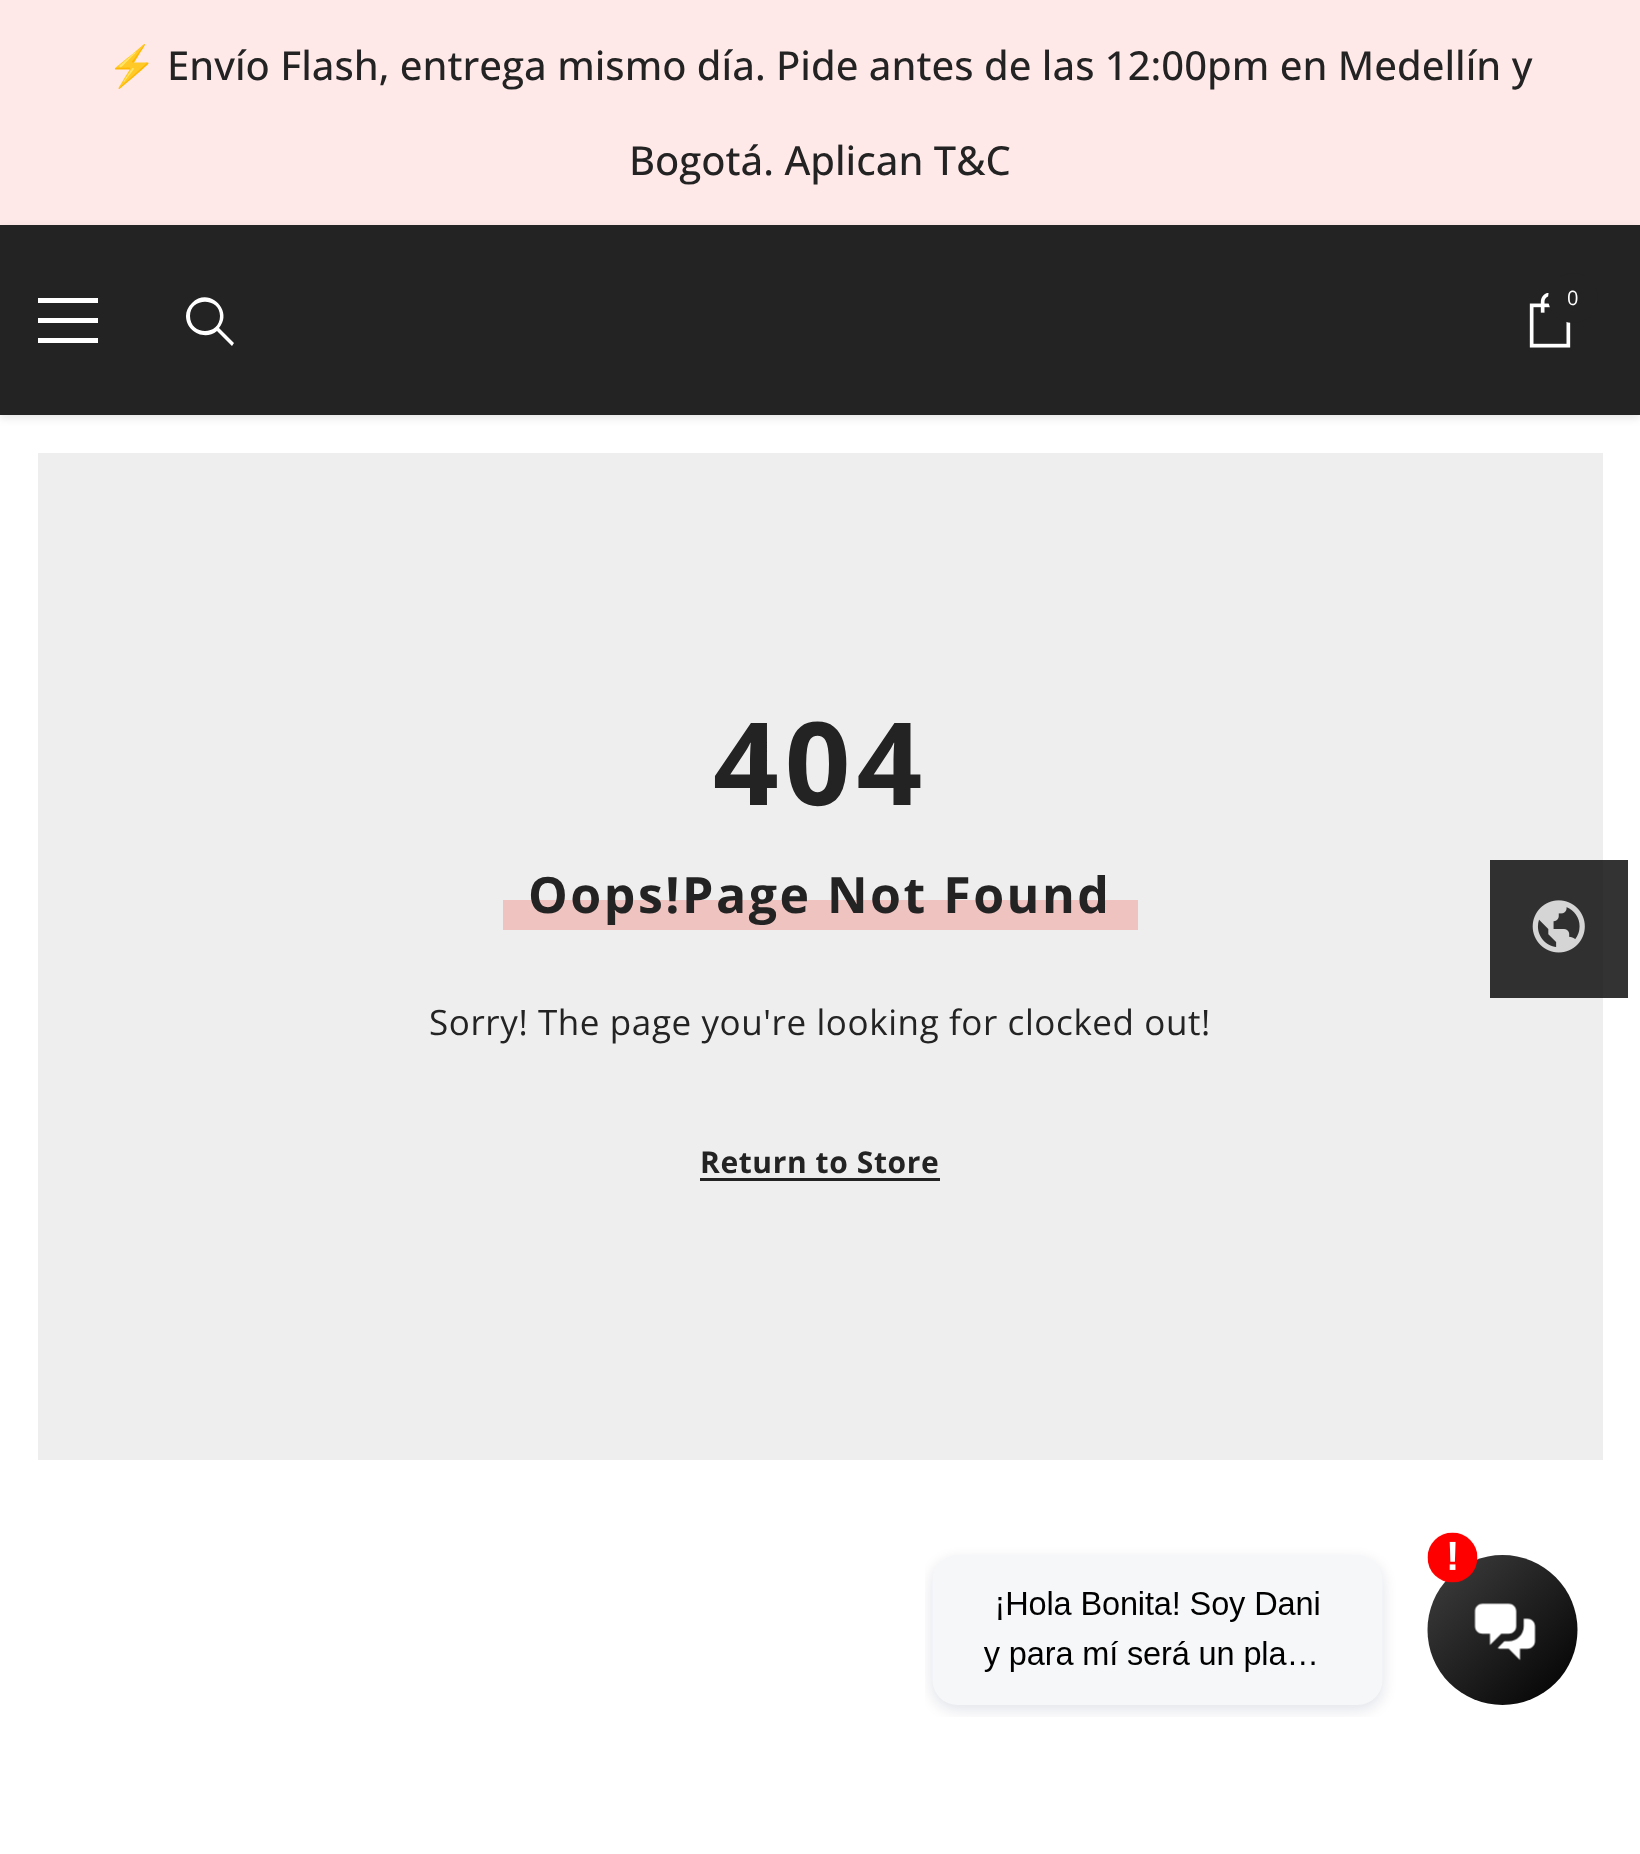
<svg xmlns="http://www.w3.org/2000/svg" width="1640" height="1854">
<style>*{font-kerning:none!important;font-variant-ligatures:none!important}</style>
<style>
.a{font:40px Noto Color Emoji;fill:#232323}
.b{font:500 40px Open Sans;fill:#232323}
.c{font:20px Open Sans;fill:#fff}
.d{font:bold 115px Open Sans;letter-spacing:6px;fill:#232323}
.e{font:bold 50px Open Sans;letter-spacing:2.5px;fill:#232323}
.f{font:35px Open Sans;letter-spacing:0.6px;fill:#232323}
.g{font:bold 30px Open Sans;letter-spacing:0.6px;fill:#232323}
</style>
<rect width="100%" height="100%" fill="#fff"/>
<path fill="#333" d="M1603 860h25v138H1603z"/>
<path fill="#ffe8e8" d="M0 0h1640v225H0z"/>
<path fill="#0000001a" filter="blur(4px)" d="M0 228h1640v190H0z"/>
<path fill="#232323" d="M0 225h1640v190H0z"/>
<path fill="#fff" d="M38 318h60v5H38z"/>
<path fill="#fff" d="M38 298h60v5H38z"/>
<path fill="#fff" d="M38 338h60v5H38z"/>
<path fill="#fff" d="M186 316c0 16 19 25 31 15l15 15l2-3l-15-15c15-17-10-42-27-25c-4 4-6 8-6 13zm4 0c0-19 30-19 30 0c0 20-30 20-30 0z"/>
<image href="1.png" x="1529" y="293" width="42" height="55"/>
<circle fill="#232323" cx="1573" cy="298" r="25"/>
<path fill="#eee" d="M38 453h1565v1007H38z"/>
<path fill="#303030" d="M1490 860h113v138H1490z"/>
<path fill="#efc3c0" d="M503 900h635v30H503z"/>
<path fill="#232323" d="M700 1178h240v3H700z"/>
<image href="2.png" x="1532" y="900" width="53" height="53"/>
<image href="3.png" x="925" y="1532" width="653" height="185"/>
<text class="a" x="107" y="80">⚡</text>
<text class="b" x="167" y="80">Envío Flash, entrega mismo día. Pide antes de las 12:00pm en Medellín y</text>
<text class="b" x="629" y="175">Bogotá. Aplican T&amp;C</text>
<text class="c" x="1567" y="305">0</text>
<text class="d" x="713" y="805">404</text>
<text class="e" x="528" y="913">Oops!Page Not Found</text>
<text class="f" x="429" y="1035">Sorry! The page you're looking for clocked out!</text>
<text class="g" x="700" y="1173">Return to Store</text>
</svg>
